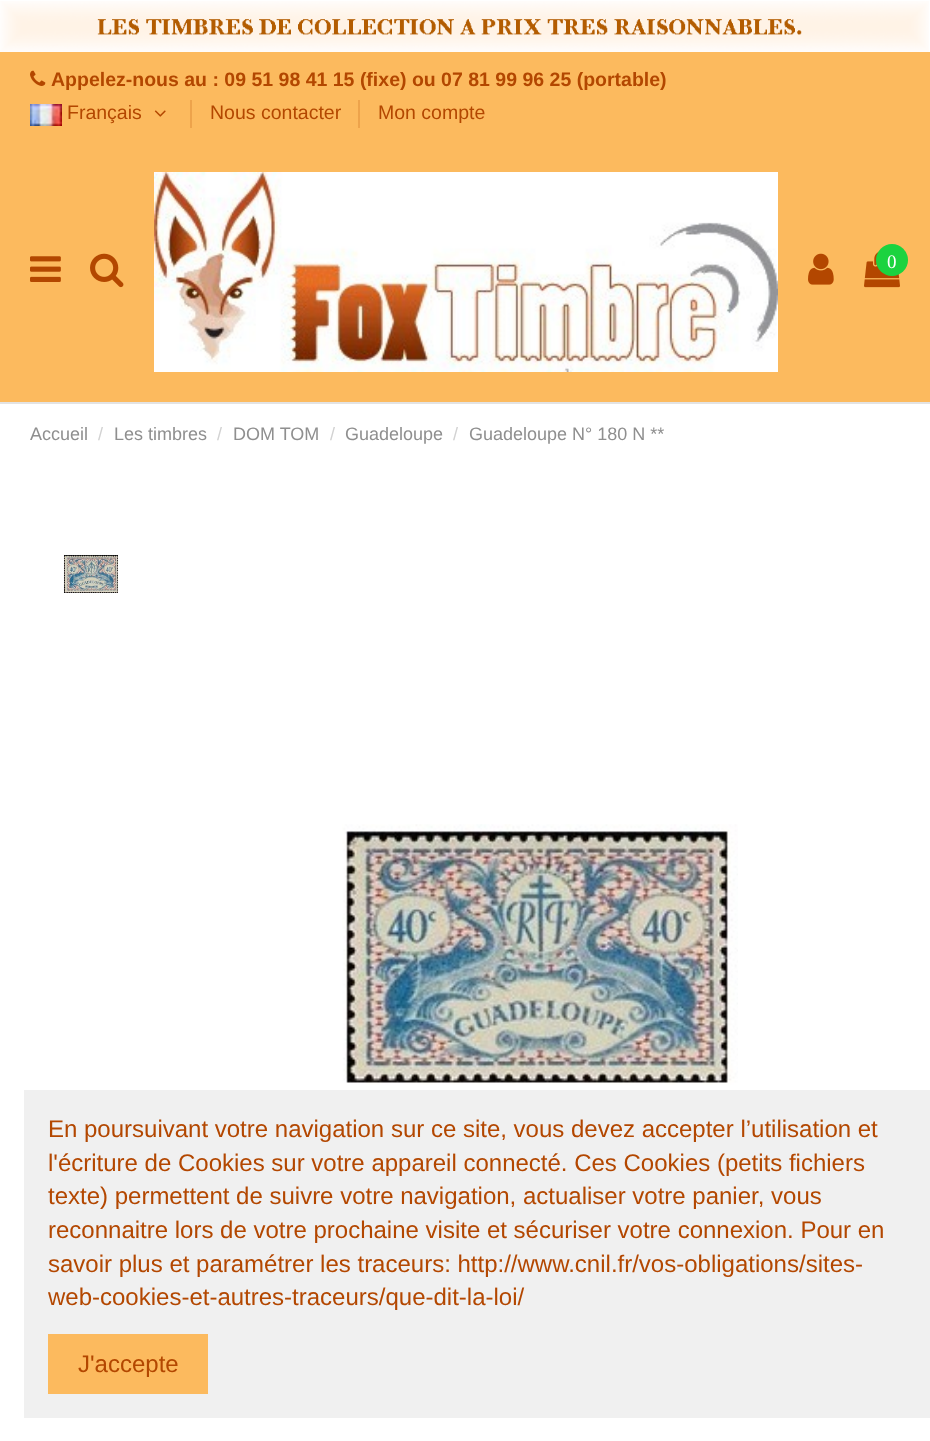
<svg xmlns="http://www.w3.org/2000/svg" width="930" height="1441">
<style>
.a{font:bold 19.5px Liberation Sans;fill:#b34700}
.b{font:19.5px Liberation Sans;fill:#b34700}
.c{font:19px Liberation Serif;fill:#fff}
.d{font:18px Liberation Sans;fill:#8f8f8f}
.e{font:18px Liberation Sans;fill:#d2d2d2}
.f{font:24px Liberation Sans;fill:#b34700}
</style>
<rect width="100%" height="100%" fill="#fff"/>
<image href="1.png" x="0" y="1" width="929" height="51"/>
<path fill="#fcba5e" d="M0 52h930v350H0z"/>
<image href="2.png" x="30" y="70" width="16" height="16"/>
<image href="3.png" x="30" y="104" width="32" height="22"/>
<image href="4.png" x="154" y="110" width="12" height="7"/>
<path fill="#eda34b" d="M190 100h2v28H190z"/>
<path fill="#eda34b" d="M358 100h2v28H358z"/>
<path fill="#e3e3e3" d="M0 402h930v2H0z"/>
<image href="5.png" x="30" y="256" width="31" height="26"/>
<image href="6.png" x="90" y="253" width="34" height="35"/>
<image href="7.png" x="154" y="172" width="624" height="200"/>
<image href="8.png" x="808" y="253" width="26" height="32"/>
<image href="9.png" x="864" y="251" width="36" height="37"/>
<circle fill="#1bd33f" cx="892" cy="260" r="16"/>
<image href="10.png" x="63" y="554" width="56" height="39"/>
<image href="11.png" x="342" y="824" width="396" height="261"/>
<path fill="#f0f0f0" d="M24 1090h906v328H24z"/>
<path fill="#fcba5e" d="M48 1334h160v60H48z"/>
<text class="a" x="51" y="86">Appelez-nous au : 09 51 98 41 15 (fixe) ou 07 81 99 96 25 (portable)</text>
<text class="b" x="67" y="119">Français</text>
<text class="b" x="210" y="119">Nous contacter</text>
<text class="b" x="378" y="119">Mon compte</text>
<text class="c" x="887" y="268">0</text>
<text class="d" x="30" y="440">Accueil</text>
<text class="e" x="98" y="440">/</text>
<text class="d" x="114" y="440">Les timbres</text>
<text class="e" x="217" y="440">/</text>
<text class="d" x="233" y="440">DOM TOM</text>
<text class="e" x="330" y="440">/</text>
<text class="d" x="345" y="440">Guadeloupe</text>
<text class="e" x="453" y="440">/</text>
<text class="d" x="469" y="440">Guadeloupe N° 180 N **</text>
<text class="f" x="48" y="1137">En poursuivant votre navigation sur ce site, vous devez accepter l’utilisation et</text>
<text class="f" x="48" y="1171">l'écriture de Cookies sur votre appareil connecté. Ces Cookies (petits fichiers</text>
<text class="f" x="48" y="1204">texte) permettent de suivre votre navigation, actualiser votre panier, vous</text>
<text class="f" x="48" y="1238">reconnaitre lors de votre prochaine visite et sécuriser votre connexion. Pour en</text>
<text class="f" x="48" y="1272">savoir plus et paramétrer les traceurs: http://www.cnil.fr/vos-obligations/sites-</text>
<text class="f" x="48" y="1305">web-cookies-et-autres-traceurs/que-dit-la-loi/</text>
<text class="f" x="78" y="1372">J'accepte</text>
</svg>
